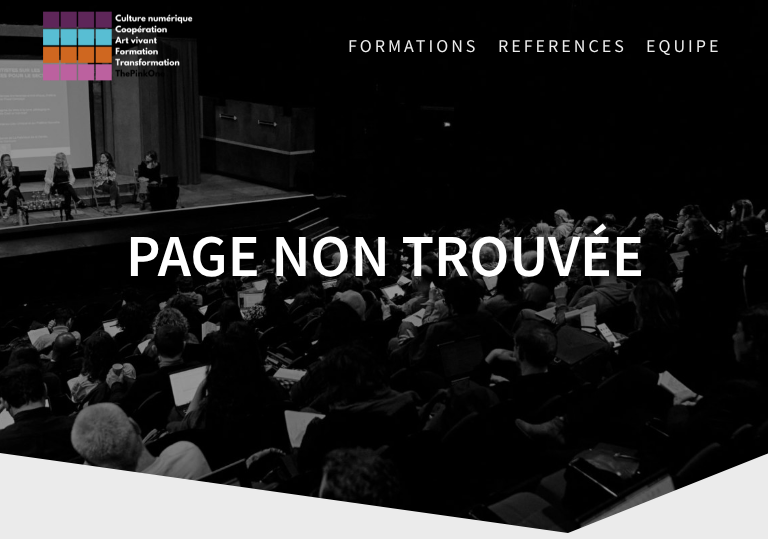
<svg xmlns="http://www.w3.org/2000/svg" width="768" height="539">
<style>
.a{font:18px Source Sans Pro;letter-spacing:3px;fill:#ededed}
.b{font:600 59.5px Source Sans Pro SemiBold;fill:#fff}
</style>
<rect width="100%" height="100%" fill="#ebebeb"/>
<image href="2.png" x="0" y="0" width="768" height="533"/>
<image href="1.png" x="43" y="11" width="150" height="70"/>
<path fill="#ebebeb" d="M568 533l-568-80v84h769v-84z"/>
<text class="a" x="348" y="52">FORMATIONS</text>
<text class="a" x="498" y="52">REFERENCES</text>
<text class="a" x="646" y="52">EQUIPE</text>
<text class="b" x="126" y="276">PAGE NON TROUVÉE</text>
</svg>
